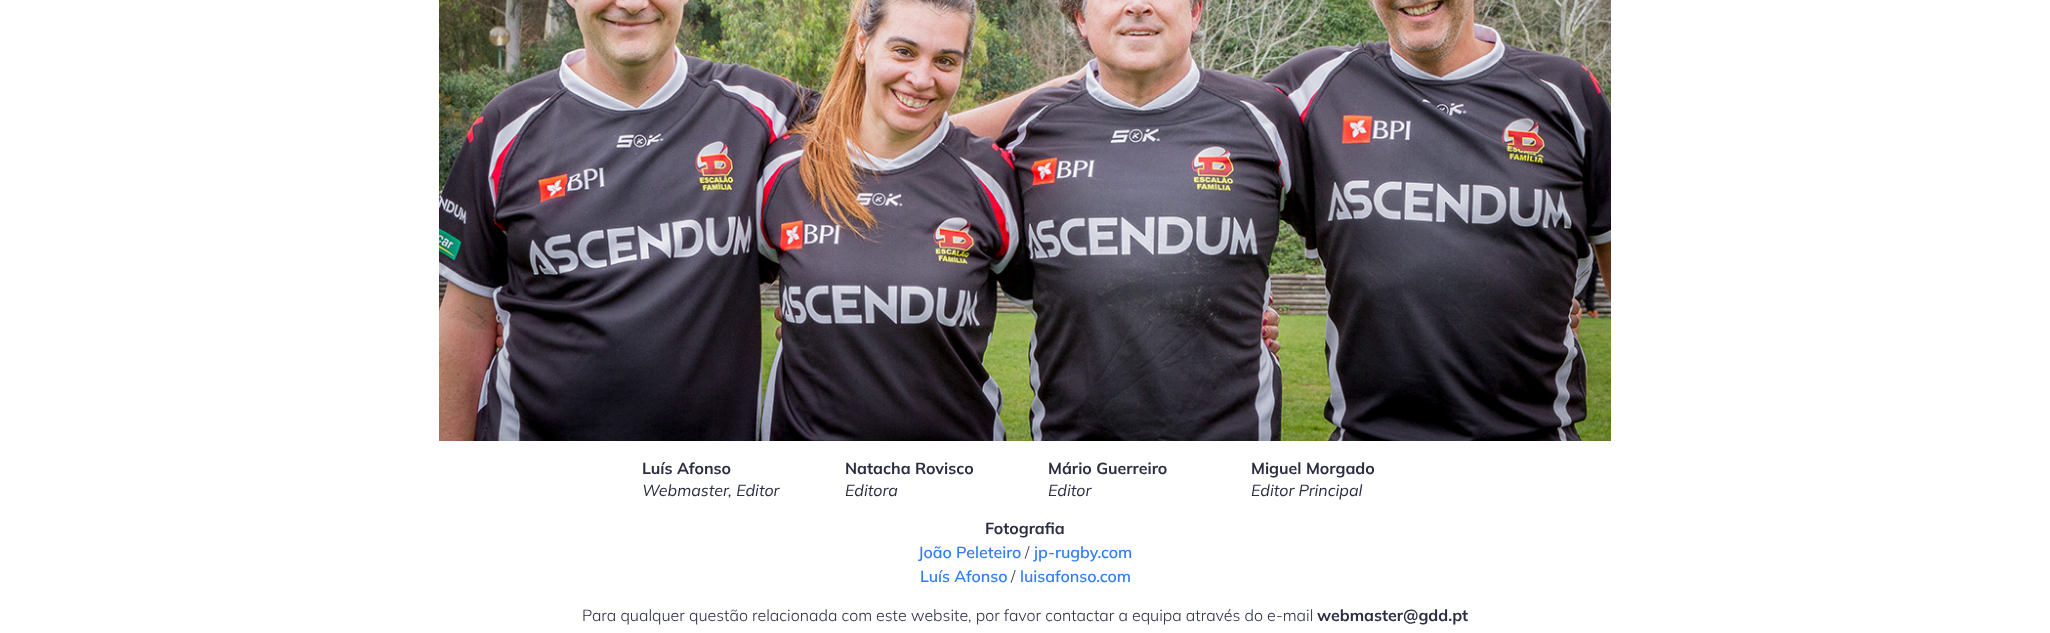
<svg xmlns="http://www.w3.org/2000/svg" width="2050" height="633">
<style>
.a{font:bold 16px Mulish;fill:#2b2d42}
.b{font:italic 16px Mulish;fill:#2b2d42}
.c{font:600 16px Mulish;fill:#2f7cff}
.d{font:300 16px Mulish;fill:#2b2d42}
</style>
<rect width="100%" height="100%" fill="#fff"/>
<image href="1.png" x="439" y="0" width="1172" height="441"/>
<text class="a" x="642" y="474">Luís Afonso</text>
<text class="b" x="642" y="496">Webmaster, Editor</text>
<text class="a" x="845" y="474">Natacha Rovisco</text>
<text class="b" x="845" y="496">Editora</text>
<text class="a" x="1048" y="474">Mário Guerreiro</text>
<text class="b" x="1048" y="496">Editor</text>
<text class="a" x="1251" y="474">Miguel Morgado</text>
<text class="b" x="1251" y="496">Editor Principal</text>
<text class="a" x="985" y="534">Fotografia</text>
<text class="c" x="918" y="558">João Peleteiro</text>
<text class="d" x="1025" y="558">/</text>
<text class="c" x="1034" y="558">jp-rugby.com</text>
<text class="c" x="920" y="582">Luís Afonso</text>
<text class="d" x="1011" y="582">/</text>
<text class="c" x="1020" y="582">luisafonso.com</text>
<text class="d" x="582" y="621">Para qualquer questão relacionada com este website, por favor contactar a equipa através do e-mail</text>
<text class="a" x="1317" y="621">webmaster@gdd.pt</text>
</svg>
